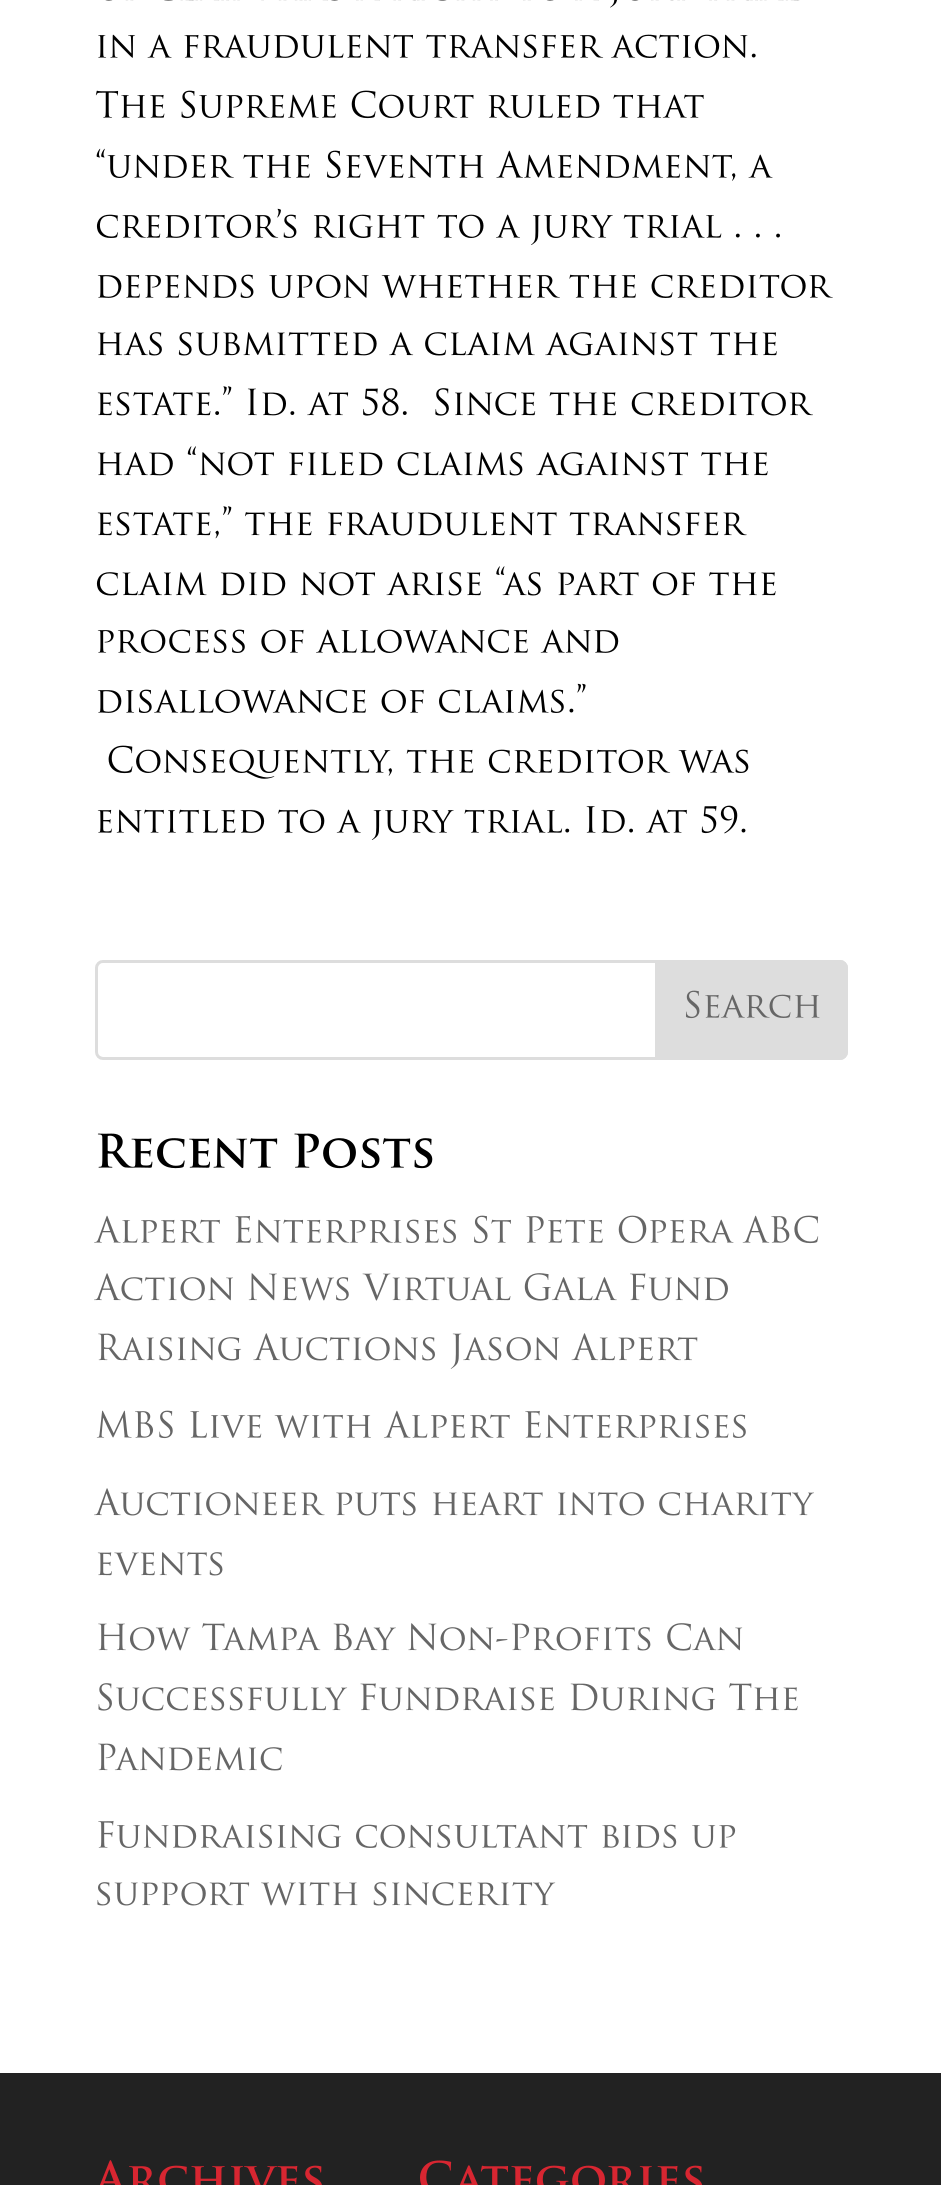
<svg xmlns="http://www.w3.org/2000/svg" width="941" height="2185">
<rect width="100%" height="100%" fill="#fff"/>
<image href="1.png" x="105" y="0" width="695" height="8"/>
<image href="2.png" x="98" y="34" width="658" height="24"/>
<image href="3.png" x="95" y="90" width="609" height="29"/>
<image href="4.png" x="96" y="148" width="677" height="33"/>
<image href="5.png" x="96" y="208" width="684" height="37"/>
<image href="6.png" x="97" y="274" width="736" height="24"/>
<image href="7.png" x="97" y="332" width="680" height="24"/>
<image href="8.png" x="97" y="386" width="716" height="30"/>
<image href="9.png" x="97" y="446" width="671" height="30"/>
<image href="10.png" x="97" y="506" width="650" height="33"/>
<image href="11.png" x="96" y="566" width="680" height="30"/>
<image href="12.png" x="97" y="629" width="522" height="24"/>
<image href="13.png" x="97" y="683" width="489" height="30"/>
<image href="14.png" x="108" y="745" width="641" height="34"/>
<image href="15.png" x="97" y="805" width="649" height="35"/>
<rect fill="none" stroke="#ddd" stroke-width="3" x="96.5" y="961.5" width="750" height="97" rx="6.5"/>
<path fill="#ddd" stroke="#ddd" stroke-width="3" d="M656.5 961.5h183.5c3.5 0 6.5 3 6.5 6.5v84c0 3.5-3 6.5-6.5 6.5h-183.5z"/>
<image href="16.png" x="686" y="990" width="134" height="29"/>
<image href="17.png" x="97" y="1133" width="336" height="36"/>
<image href="18.png" x="94" y="1215" width="725" height="29"/>
<image href="19.png" x="94" y="1273" width="634" height="28"/>
<image href="20.png" x="98" y="1333" width="600" height="36"/>
<image href="21.png" x="96" y="1410" width="650" height="29"/>
<image href="22.png" x="94" y="1488" width="720" height="28"/>
<image href="23.png" x="97" y="1552" width="126" height="24"/>
<image href="24.png" x="98" y="1623" width="645" height="28"/>
<image href="25.png" x="98" y="1683" width="700" height="28"/>
<image href="26.png" x="98" y="1743" width="184" height="28"/>
<image href="27.png" x="98" y="1820" width="638" height="28"/>
<image href="28.png" x="97" y="1882" width="459" height="24"/>
<path fill="#222" d="M0 2073h941v112H0z"/>
<image href="29.png" x="100" y="2160" width="222" height="25"/>
<image href="30.png" x="420" y="2160" width="283" height="25"/>
</svg>
